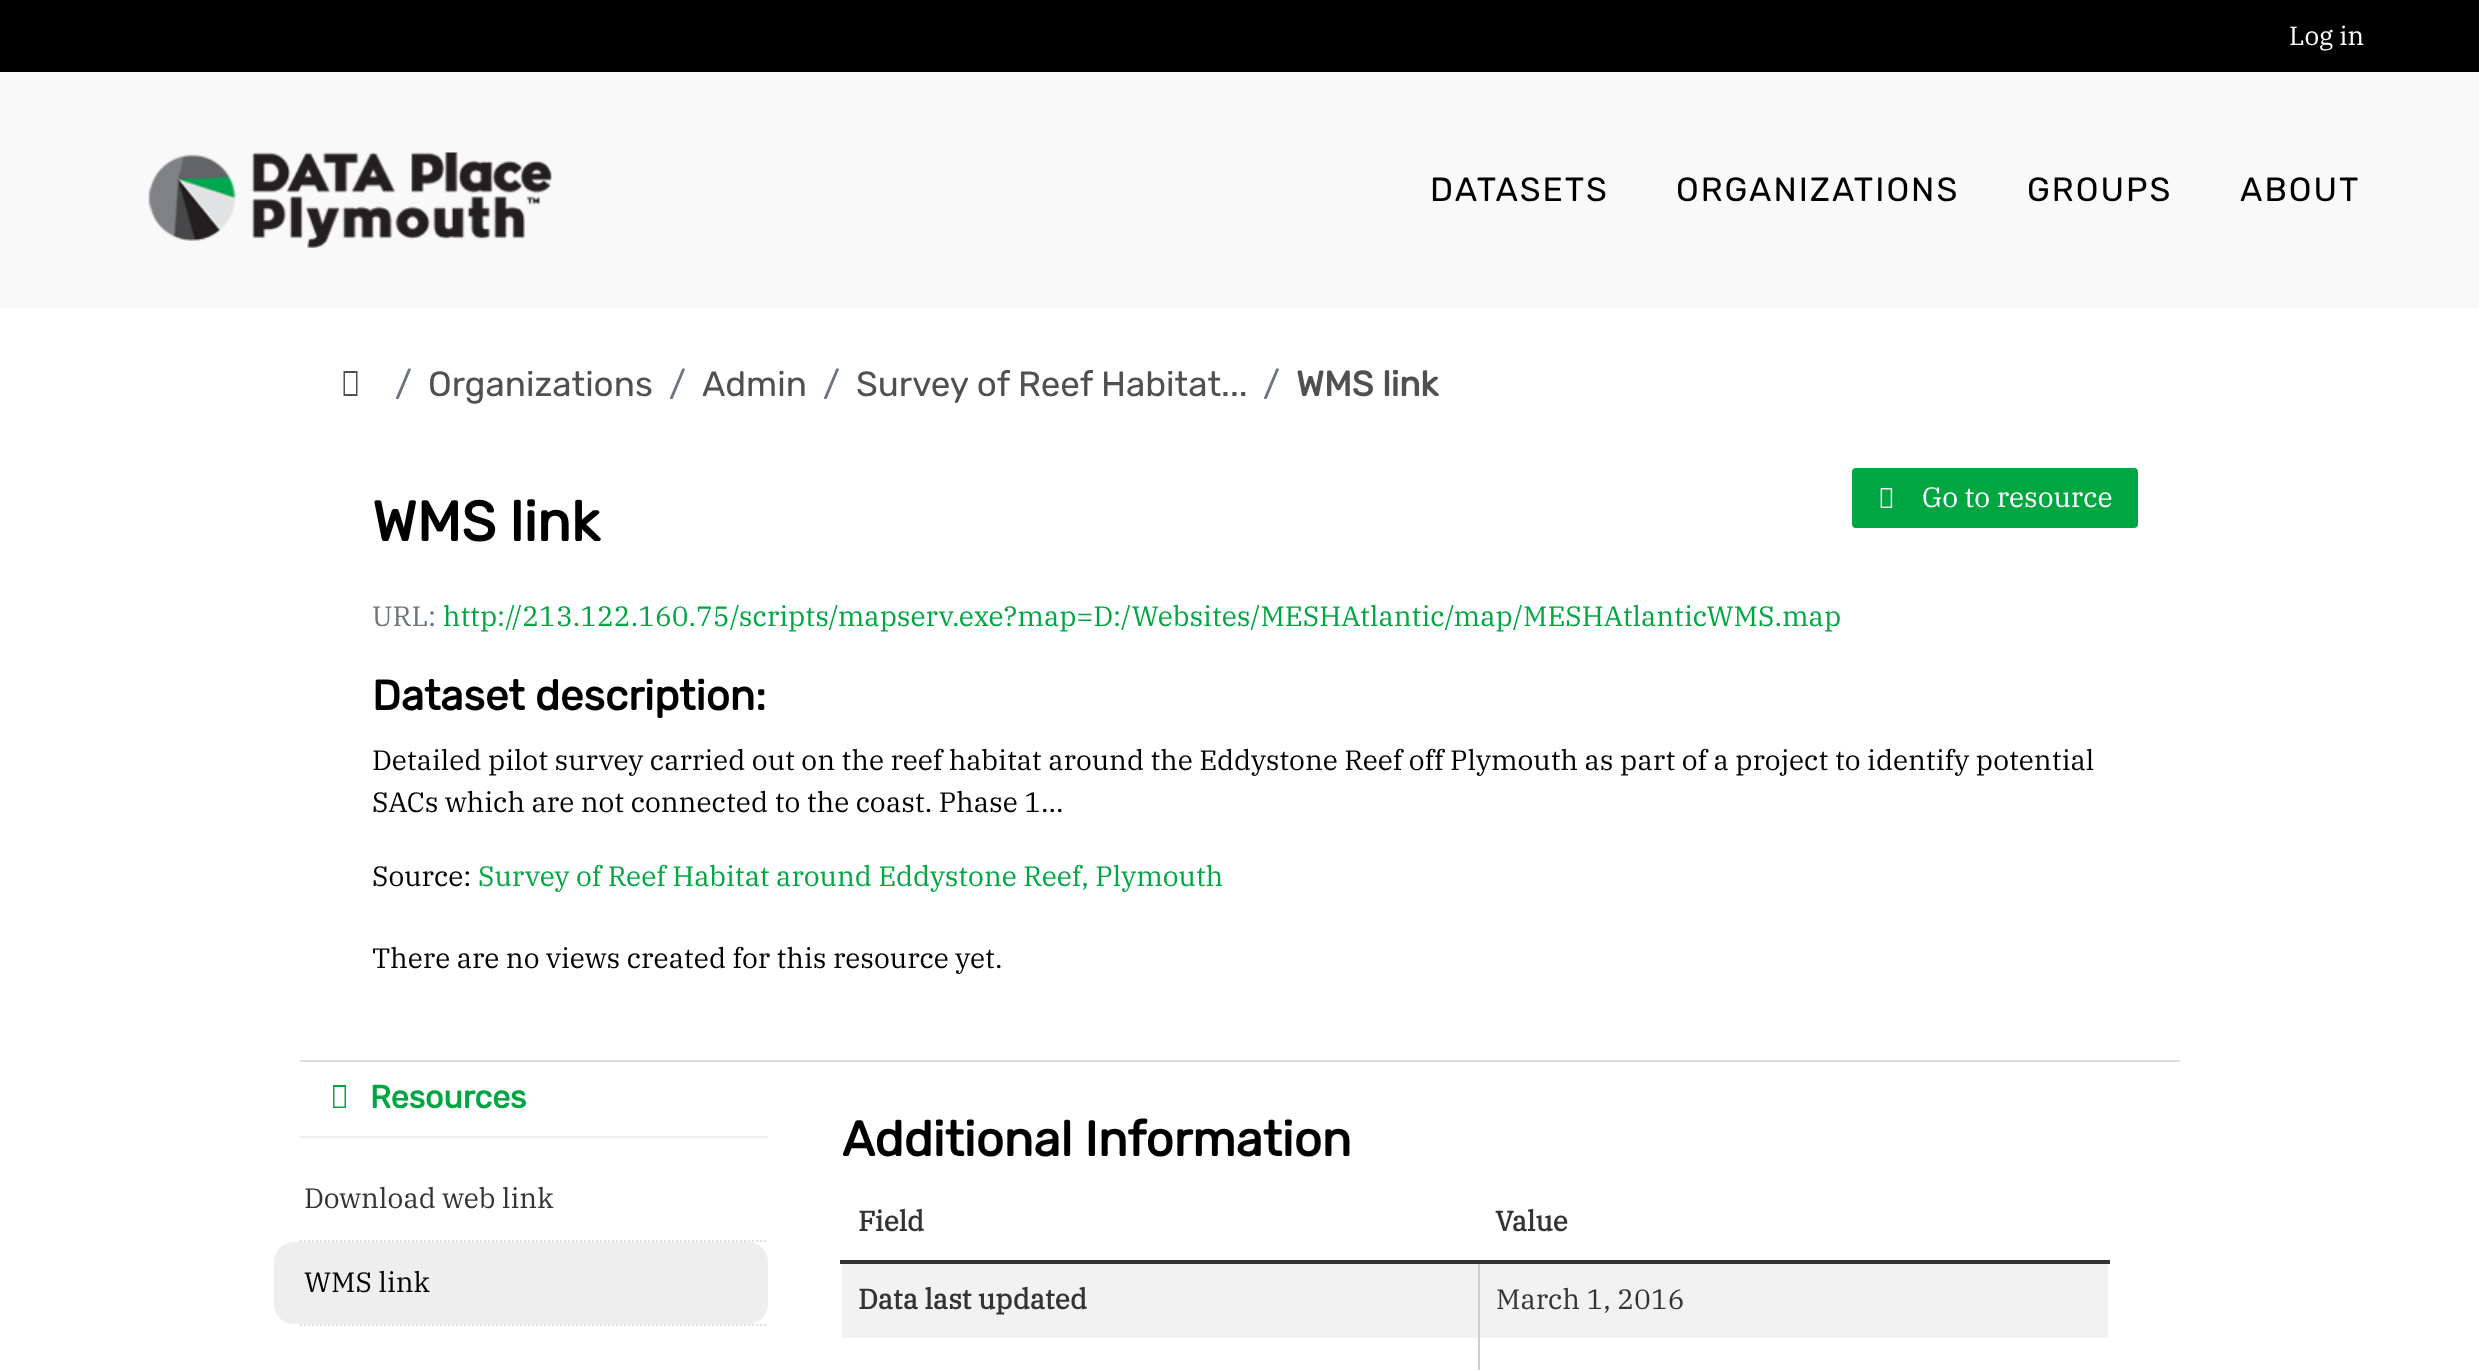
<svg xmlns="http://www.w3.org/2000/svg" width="2479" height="1370">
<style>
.a{font:26px IBM Plex Serif;fill:#fff}
.b{font:300 33.5px Rubik;letter-spacing:2px;fill:#000}
.c{font:300 35px Rubik;fill:#6c757d}
.d{font:300 35px Rubik;fill:#505050}
.e{font:bold 35px Rubik;fill:#505050}
.f{font:28px IBM Plex Serif;fill:#fff}
.g{font:bold 56px Rubik;fill:#000}
.h{font:28px IBM Plex Serif;fill:#6c757d}
.i{font:28px IBM Plex Serif;fill:#00a641}
.j{font:bold 42px Rubik;fill:#000}
.k{font:28px IBM Plex Serif;fill:#000}
.l{font:bold 32px Rubik;fill:#00a641}
.m{font:28px IBM Plex Serif;fill:#333}
.n{font:bold 49px Rubik;fill:#000}
.o{font:bold 28px IBM Plex Serif;fill:#333}
</style>
<rect width="100%" height="100%" fill="#fff"/>
<path fill="#000" d="M0 0h2479v72H0z"/>
<path fill="#f9f9f9" d="M0 72h2479v236H0z"/>
<image href="1.png" x="148" y="152" width="404" height="96"/>
<path fill="#505050" d="M343.5 396v-25h14v25zm1.5-2h11v-21h-11z"/>
<path fill="#ddd" d="M300 1060h1880v2H300z"/>
<rect fill="#00a641" stroke="#00a641" stroke-width="2" x="1853" y="469" width="284" height="58" rx="3"/>
<image href="2.png" x="1880" y="488" width="13" height="20"/>
<path fill="#eee" d="M300 1136h468v2H300z"/>
<path fill="#00a641" d="M333 1108v-23h13v23zm1.5-1.5h10v-19.5h-10z"/>
<path fill="none" stroke="#ddd" stroke-width="2" stroke-dasharray="2 2" d="M300 1241h468"/>
<path fill="none" stroke="#ddd" stroke-width="2" stroke-dasharray="2 2" d="M300 1325h468"/>
<rect fill="#eee" x="274" y="1242" width="494" height="82" rx="20"/>
<path fill="#cecece" d="M1478 1260h2v110H1478z"/>
<path fill="#333" d="M840 1260h1270v4H840z"/>
<path fill="#f2f2f2" d="M842 1264h636v74H842z"/>
<path fill="#f2f2f2" d="M1480 1264h628v74H1480z"/>
<text class="a" x="2289" y="45">Log in</text>
<text class="b" x="1430" y="201">DATASETS</text>
<text class="b" x="1676" y="201">ORGANIZATIONS</text>
<text class="b" x="2027" y="201">GROUPS</text>
<text class="b" x="2240" y="201">ABOUT</text>
<text class="c" x="395" y="396">/</text>
<text class="d" x="428" y="396">Organizations</text>
<text class="c" x="669" y="396">/</text>
<text class="d" x="702" y="396">Admin</text>
<text class="c" x="823" y="396">/</text>
<text class="d" x="856" y="396">Survey of Reef Habitat...</text>
<text class="c" x="1263" y="396">/</text>
<text class="e" x="1296" y="396">WMS link</text>
<text class="f" x="1922" y="507">Go to resource</text>
<text class="g" x="372" y="541">WMS link</text>
<text class="h" x="372" y="626">URL:</text>
<text class="i" x="443" y="626">http://213.122.160.75/scripts/mapserv.exe?map=D:/Websites/MESHAtlantic/map/MESHAtlanticWMS.map</text>
<text class="j" x="372" y="710">Dataset description:</text>
<text class="k" x="372" y="770">Detailed pilot survey carried out on the reef habitat around the Eddystone Reef off Plymouth as part of a project to identify potential</text>
<text class="k" x="372" y="812">SACs which are not connected to the coast. Phase 1...</text>
<text class="k" x="372" y="886">Source:</text>
<text class="i" x="478" y="886">Survey of Reef Habitat around Eddystone Reef, Plymouth</text>
<text class="k" x="372" y="968">There are no views created for this resource yet.</text>
<text class="l" x="370" y="1108">Resources</text>
<text class="m" x="304" y="1208">Download web link</text>
<text class="k" x="304" y="1292">WMS link</text>
<text class="n" x="842" y="1156">Additional Information</text>
<text class="o" x="858" y="1231">Field</text>
<text class="o" x="1495" y="1231">Value</text>
<text class="o" x="858" y="1309">Data last updated</text>
<text class="m" x="1496" y="1309">March 1, 2016</text>
</svg>
